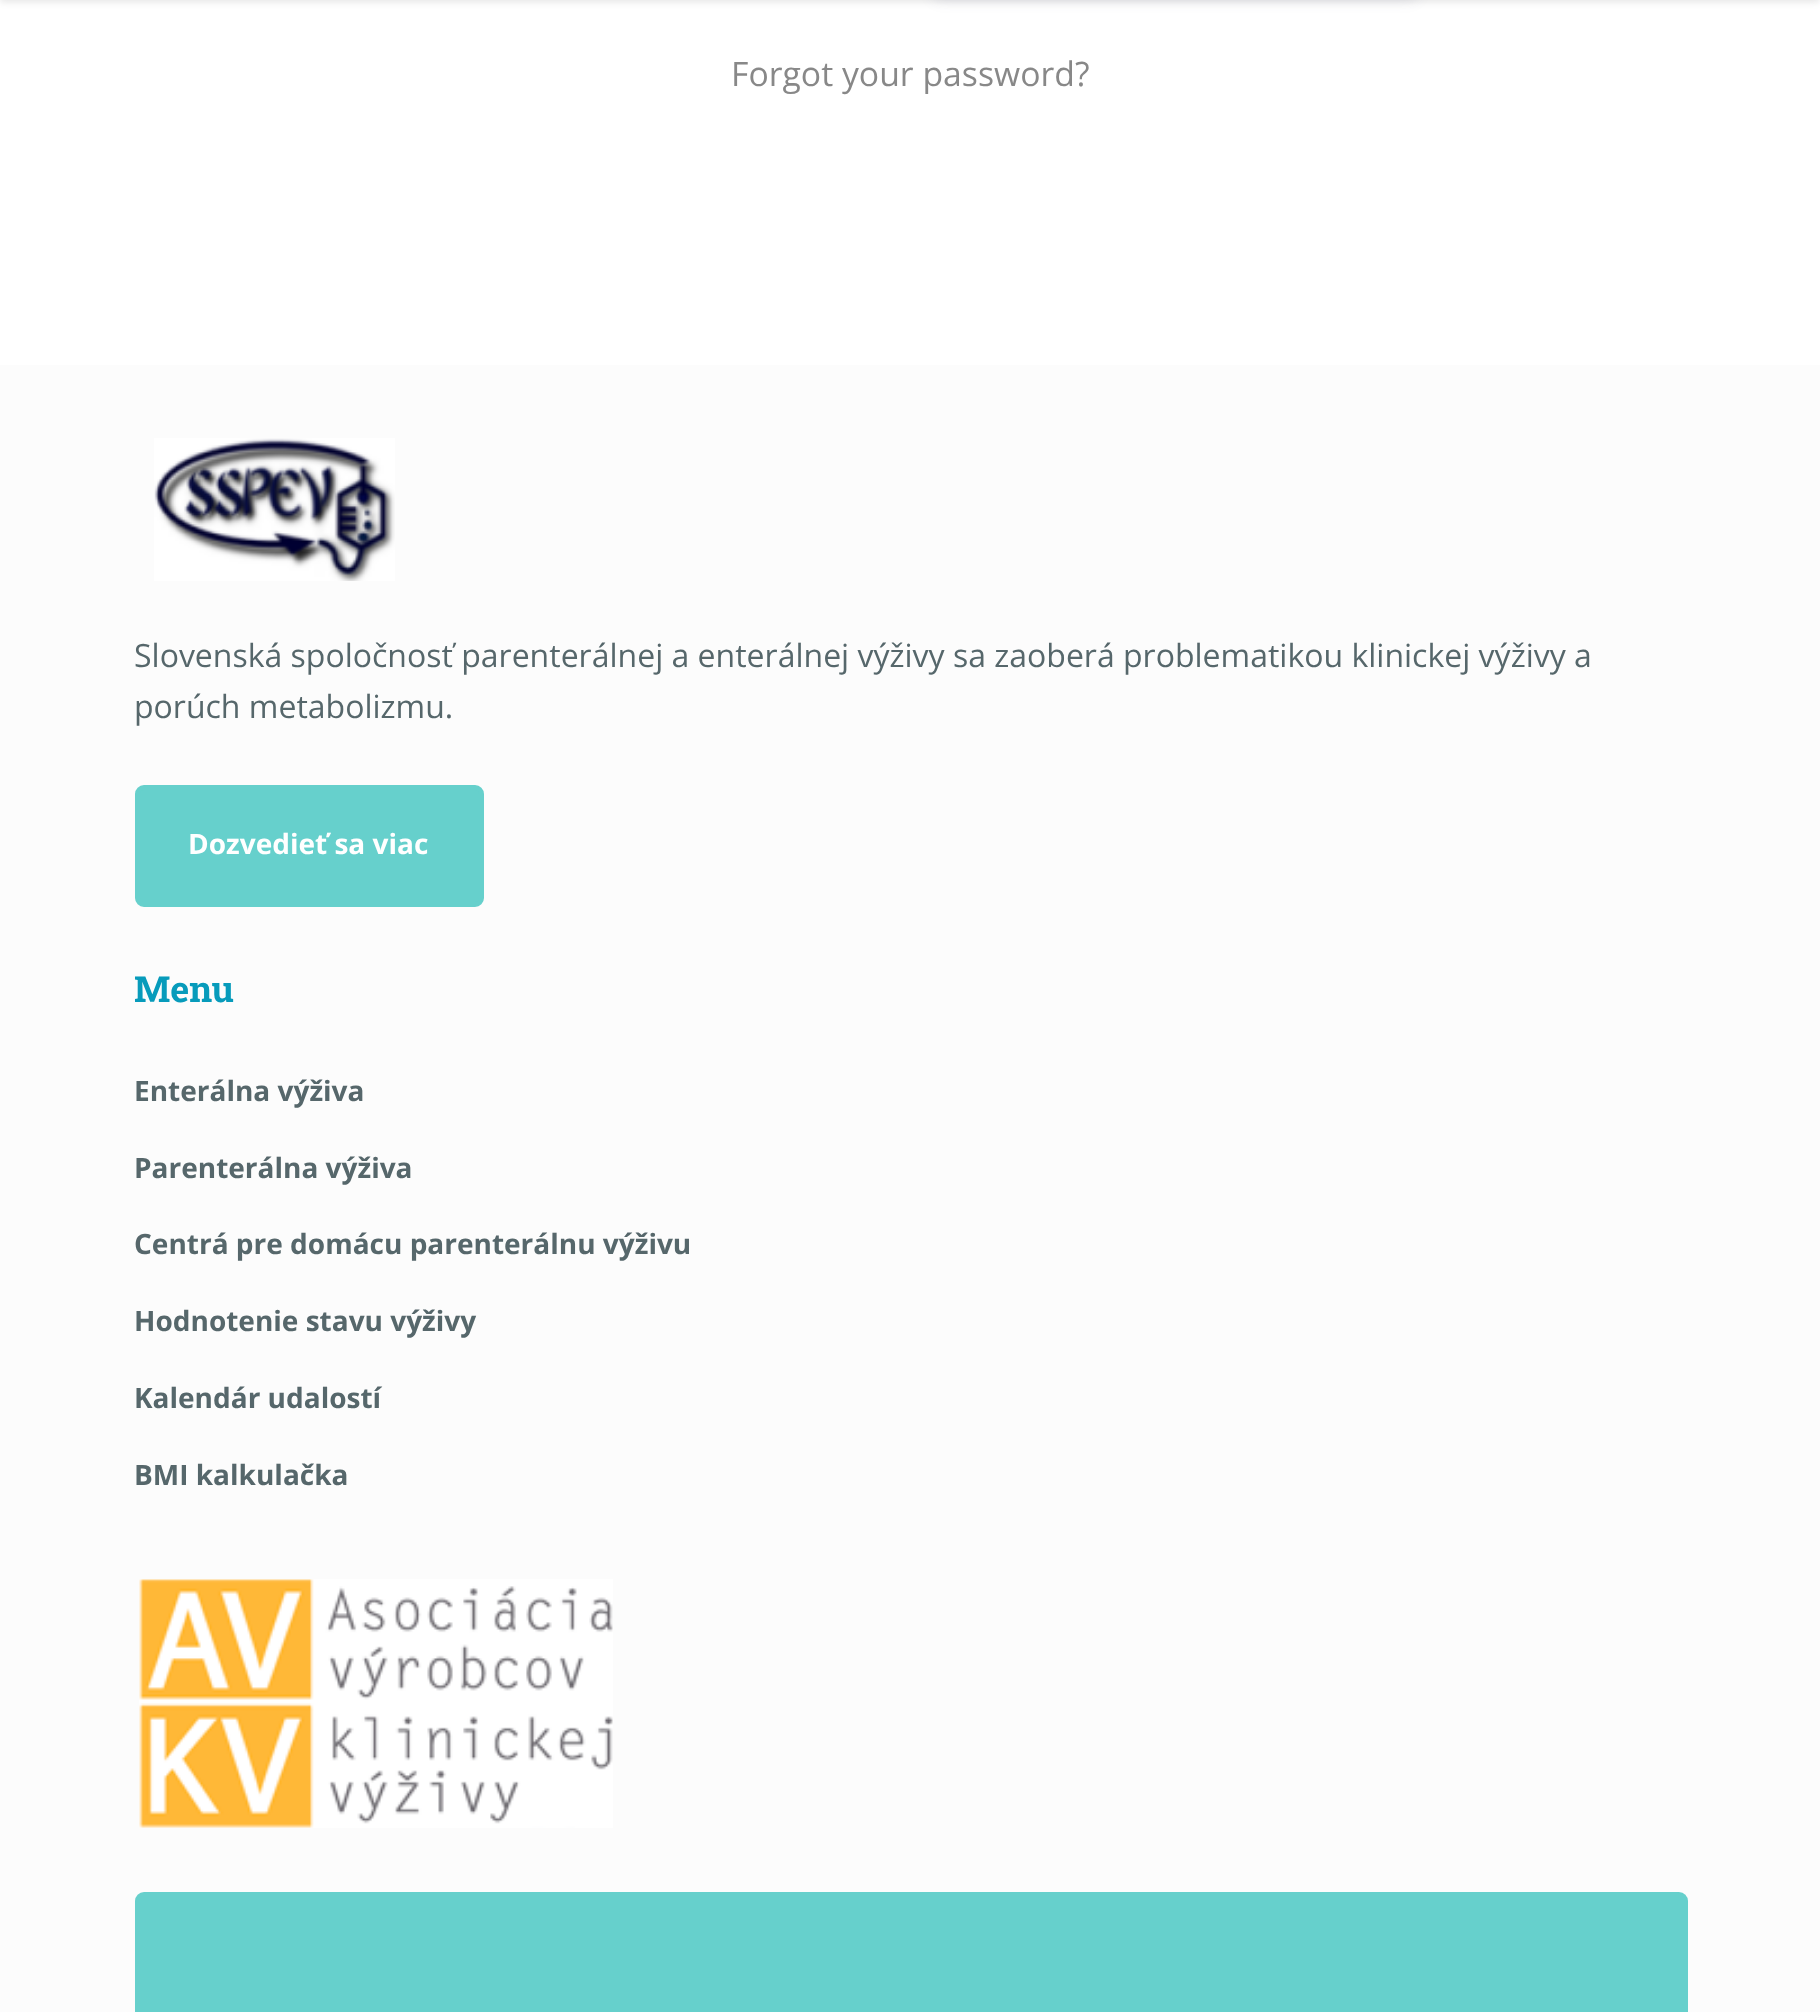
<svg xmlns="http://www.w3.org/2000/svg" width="1820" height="2012">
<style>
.a{font:33.75px Open Sans;fill:#888}
.b{font:32px Open Sans;fill:#56676b}
.c{font:bold 28px Open Sans;fill:#fff}
.d{font:bold 36px Roboto Slab;fill:#079bbb}
.e{font:bold 28px Open Sans;fill:#56676b}
</style>
<rect width="100%" height="100%" fill="#fff"/>
<path fill="#0000001a" filter="blur(3.5px)" d="M0 -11h1820v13H0z"/>
<rect fill="#32325d1c" filter="blur(7px)" x="932" y="-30" width="486" height="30" rx="9"/>
<path fill="#fcfcfc" d="M0 365h1820v1647H0z"/>
<image href="1.png" x="154" y="438" width="241" height="143"/>
<rect fill="#66d0cc" stroke="#66d0cc" stroke-width="5" x="137.5" y="787.5" width="344" height="117" rx="6.5"/>
<image href="2.png" x="139" y="1579" width="474" height="249"/>
<rect fill="#66d0cc" x="135" y="1892" width="1553" height="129" rx="9"/>
<text class="a" x="731" y="86">Forgot your password?</text>
<text class="b" x="134" y="667">Slovenská spoločnosť parenterálnej a enterálnej výživy sa zaoberá problematikou klinickej výživy a</text>
<text class="b" x="134" y="718">porúch metabolizmu.</text>
<text class="c" x="188" y="854">Dozvedieť sa viac</text>
<text class="d" x="134" y="1002">Menu</text>
<text class="e" x="134" y="1101">Enterálna výživa</text>
<text class="e" x="134" y="1178">Parenterálna výživa</text>
<text class="e" x="134" y="1254">Centrá pre domácu parenterálnu výživu</text>
<text class="e" x="134" y="1331">Hodnotenie stavu výživy</text>
<text class="e" x="134" y="1408">Kalendár udalostí</text>
<text class="e" x="134" y="1485">BMI kalkulačka</text>
</svg>
